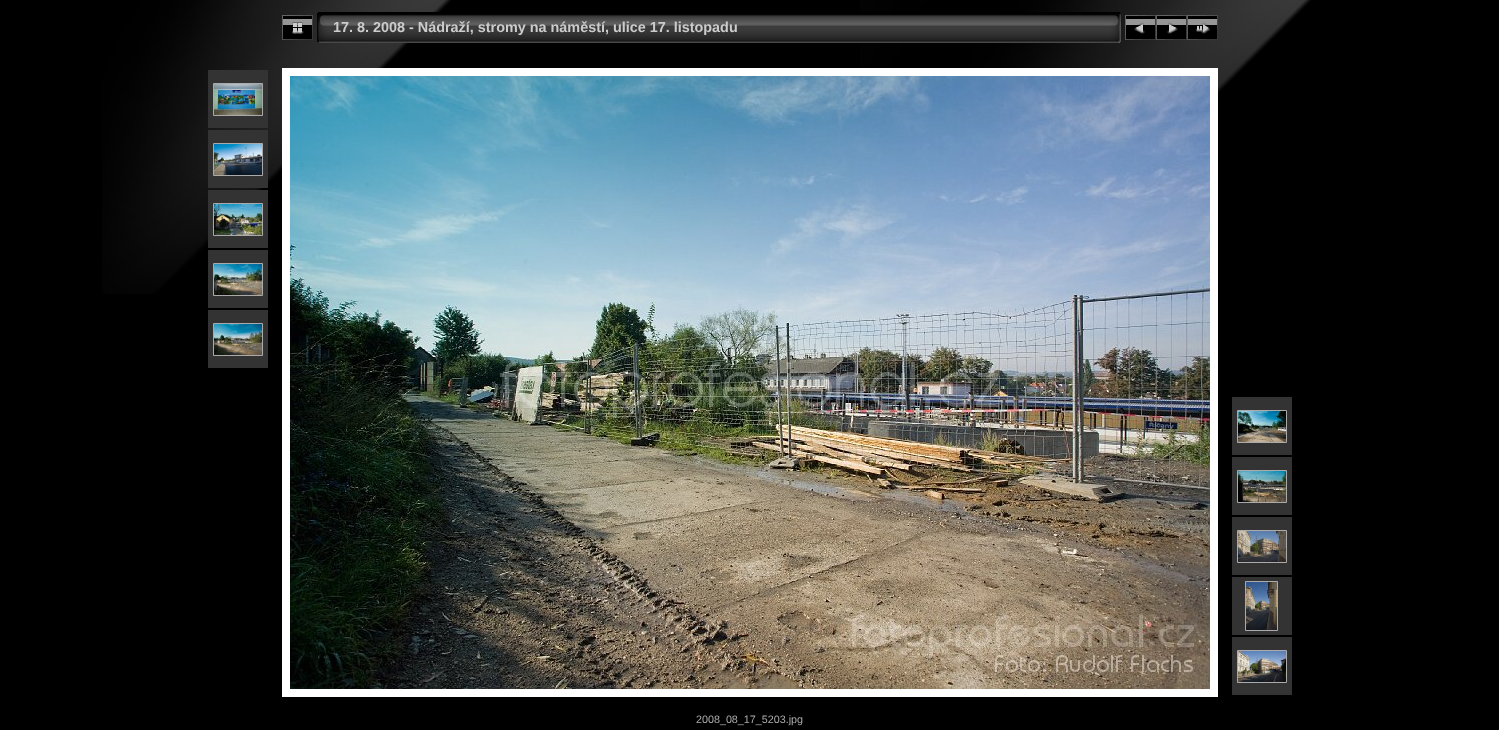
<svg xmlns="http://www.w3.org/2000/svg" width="1499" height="730">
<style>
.a{font:bold 14.4px Liberation Sans;fill:#ccc}
.b{font:10.75px Liberation Sans;fill:#aaa}
</style>
<rect width="100%" height="100%" fill="#000"/>
<image href="1.png" x="102" y="0" width="1209" height="294"/>
<image href="2.png" x="282" y="15" width="31" height="25"/>
<image href="3.png" x="317" y="12" width="16" height="31"/>
<image href="4.png" x="333" y="12" width="772" height="31"/>
<image href="5.png" x="1105" y="12" width="16" height="31"/>
<image href="6.png" x="1125" y="15" width="31" height="25"/>
<image href="7.png" x="1156" y="15" width="31" height="25"/>
<image href="8.png" x="1187" y="15" width="31" height="25"/>
<path fill="#333" d="M208 70h60v58H208z"/>
<path fill="none" stroke="#aaa" d="M213.5 83.5h49v32H213.5z"/>
<image href="9.png" x="214" y="84" width="48" height="31"/>
<path fill="#333" d="M208 130h60v58H208z"/>
<path fill="none" stroke="#aaa" d="M213.5 143.5h49v32H213.5z"/>
<image href="10.png" x="214" y="144" width="48" height="31"/>
<path fill="#333" d="M208 190h60v58H208z"/>
<path fill="none" stroke="#aaa" d="M213.5 203.5h49v32H213.5z"/>
<image href="11.png" x="214" y="204" width="48" height="31"/>
<path fill="#333" d="M208 250h60v58H208z"/>
<path fill="none" stroke="#aaa" d="M213.5 263.5h49v32H213.5z"/>
<image href="12.png" x="214" y="264" width="48" height="31"/>
<path fill="#333" d="M208 310h60v58H208z"/>
<path fill="none" stroke="#aaa" d="M213.5 323.5h49v32H213.5z"/>
<image href="13.png" x="214" y="324" width="48" height="31"/>
<path fill="none" stroke="#fff" stroke-width="8" d="M286 72h928v621H286z"/>
<image href="14.png" x="290" y="76" width="920" height="613"/>
<path fill="#333" d="M1232 397h60v58H1232z"/>
<path fill="none" stroke="#aaa" d="M1237.5 410.5h49v32H1237.5z"/>
<image href="15.png" x="1238" y="411" width="48" height="31"/>
<path fill="#333" d="M1232 457h60v58H1232z"/>
<path fill="none" stroke="#aaa" d="M1237.5 470.5h49v32H1237.5z"/>
<image href="16.png" x="1238" y="471" width="48" height="31"/>
<path fill="#333" d="M1232 517h60v58H1232z"/>
<path fill="none" stroke="#aaa" d="M1237.5 530.5h49v32H1237.5z"/>
<image href="17.png" x="1238" y="531" width="48" height="31"/>
<path fill="#333" d="M1232 577h60v58H1232z"/>
<path fill="none" stroke="#aaa" d="M1245.5 581.5h32v49H1245.5z"/>
<image href="18.png" x="1246" y="582" width="31" height="48"/>
<path fill="#333" d="M1232 637h60v58H1232z"/>
<path fill="none" stroke="#aaa" d="M1237.5 650.5h49v32H1237.5z"/>
<image href="19.png" x="1238" y="651" width="48" height="31"/>
<text class="a" x="333" y="32">17. 8. 2008 - Nádraží, stromy na náměstí, ulice 17. listopadu</text>
<text class="b" x="696" y="723">2008_08_17_5203.jpg</text>
</svg>
